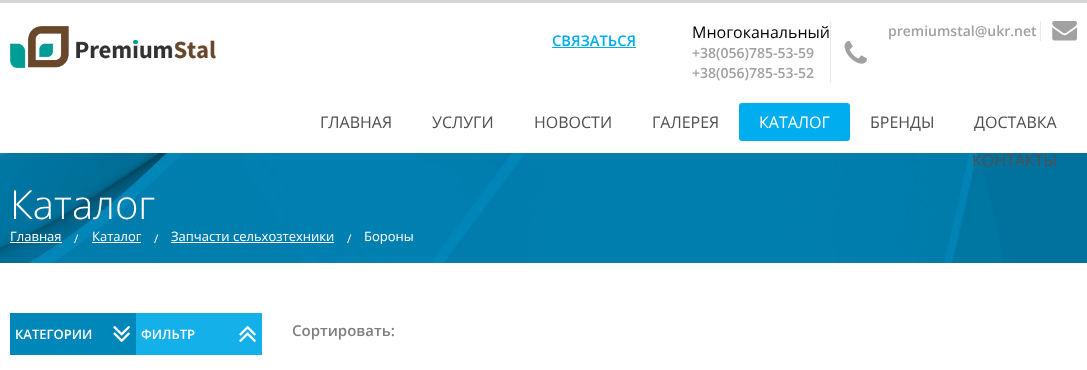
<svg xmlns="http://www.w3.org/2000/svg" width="1087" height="370">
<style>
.a{font:600 14.75px Open Sans;fill:#00adee}
.b{font:16px Open Sans;fill:#000}
.c{font:600 14px Open Sans;fill:#a1a1a1}
.d{font:16px Open Sans;fill:#4f4f4f}
.e{font:16px Open Sans;fill:#fff}
.f{font:300 40px Open Sans;fill:#fff}
.g{font:13px Open Sans;fill:#fff}
.h{font:12px Open Sans;fill:#fff}
.i{font:600 13px Open Sans;fill:#fff}
.j{font:600 15px Open Sans;fill:#7f7f7f}
</style>
<rect width="100%" height="100%" fill="#fff"/>
<path fill="#d5d5d5" d="M0 0h1087v3H0z"/>
<image href="1.png" x="10" y="26" width="206" height="42"/>
<path fill="#00adee" d="M552 47h84v1H552z"/>
<image href="2.png" x="844" y="41" width="23" height="23"/>
<path fill="#ebebeb" d="M830 21h1v62H830z"/>
<image href="3.png" x="1052" y="21" width="25" height="20"/>
<path fill="#ebebeb" d="M1040 21h1v20H1040z"/>
<rect fill="#00adee" x="739" y="103" width="111" height="38" rx="3"/>
<image href="4.png" x="0" y="153" width="1087" height="110"/>
<path fill="#fff" d="M10 242h52v1H10z"/>
<path fill="#fff" d="M92 242h49v1H92z"/>
<path fill="#fff" d="M171 242h163v1H171z"/>
<path fill="#0087ba" d="M10 313h126v42H10z"/>
<image href="5.png" x="113" y="326" width="17" height="17"/>
<path fill="#14b0ea" d="M136 313h126v42H136z"/>
<image href="6.png" x="239" y="325" width="17" height="17"/>
<text class="a" x="552" y="46">СВЯЗАТЬСЯ</text>
<text class="b" x="692" y="38">Многоканальный</text>
<text class="c" x="692" y="58">+38(056)785-53-59</text>
<text class="c" x="692" y="78">+38(056)785-53-52</text>
<text class="c" x="888" y="36">premiumstal@ukr.net</text>
<text class="d" x="320" y="128">ГЛАВНАЯ</text>
<text class="d" x="432" y="128">УСЛУГИ</text>
<text class="d" x="534" y="128">НОВОСТИ</text>
<text class="d" x="652" y="128">ГАЛЕРЕЯ</text>
<text class="e" x="759" y="128">КАТАЛОГ</text>
<text class="d" x="870" y="128">БРЕНДЫ</text>
<text class="d" x="974" y="128">ДОСТАВКА</text>
<text class="d" x="972" y="166">КОНТАКТЫ</text>
<text class="f" x="10" y="219">Каталог</text>
<text class="g" x="10" y="241">Главная</text>
<text class="h" x="74" y="243">/</text>
<text class="g" x="92" y="241">Каталог</text>
<text class="h" x="154" y="243">/</text>
<text class="g" x="171" y="241">Запчасти сельхозтехники</text>
<text class="h" x="347" y="243">/</text>
<text class="g" x="364" y="241">Бороны</text>
<text class="i" x="15" y="339">КАТЕГОРИИ</text>
<text class="i" x="141" y="339">ФИЛЬТР</text>
<text class="j" x="292" y="336">Сортировать:</text>
</svg>
